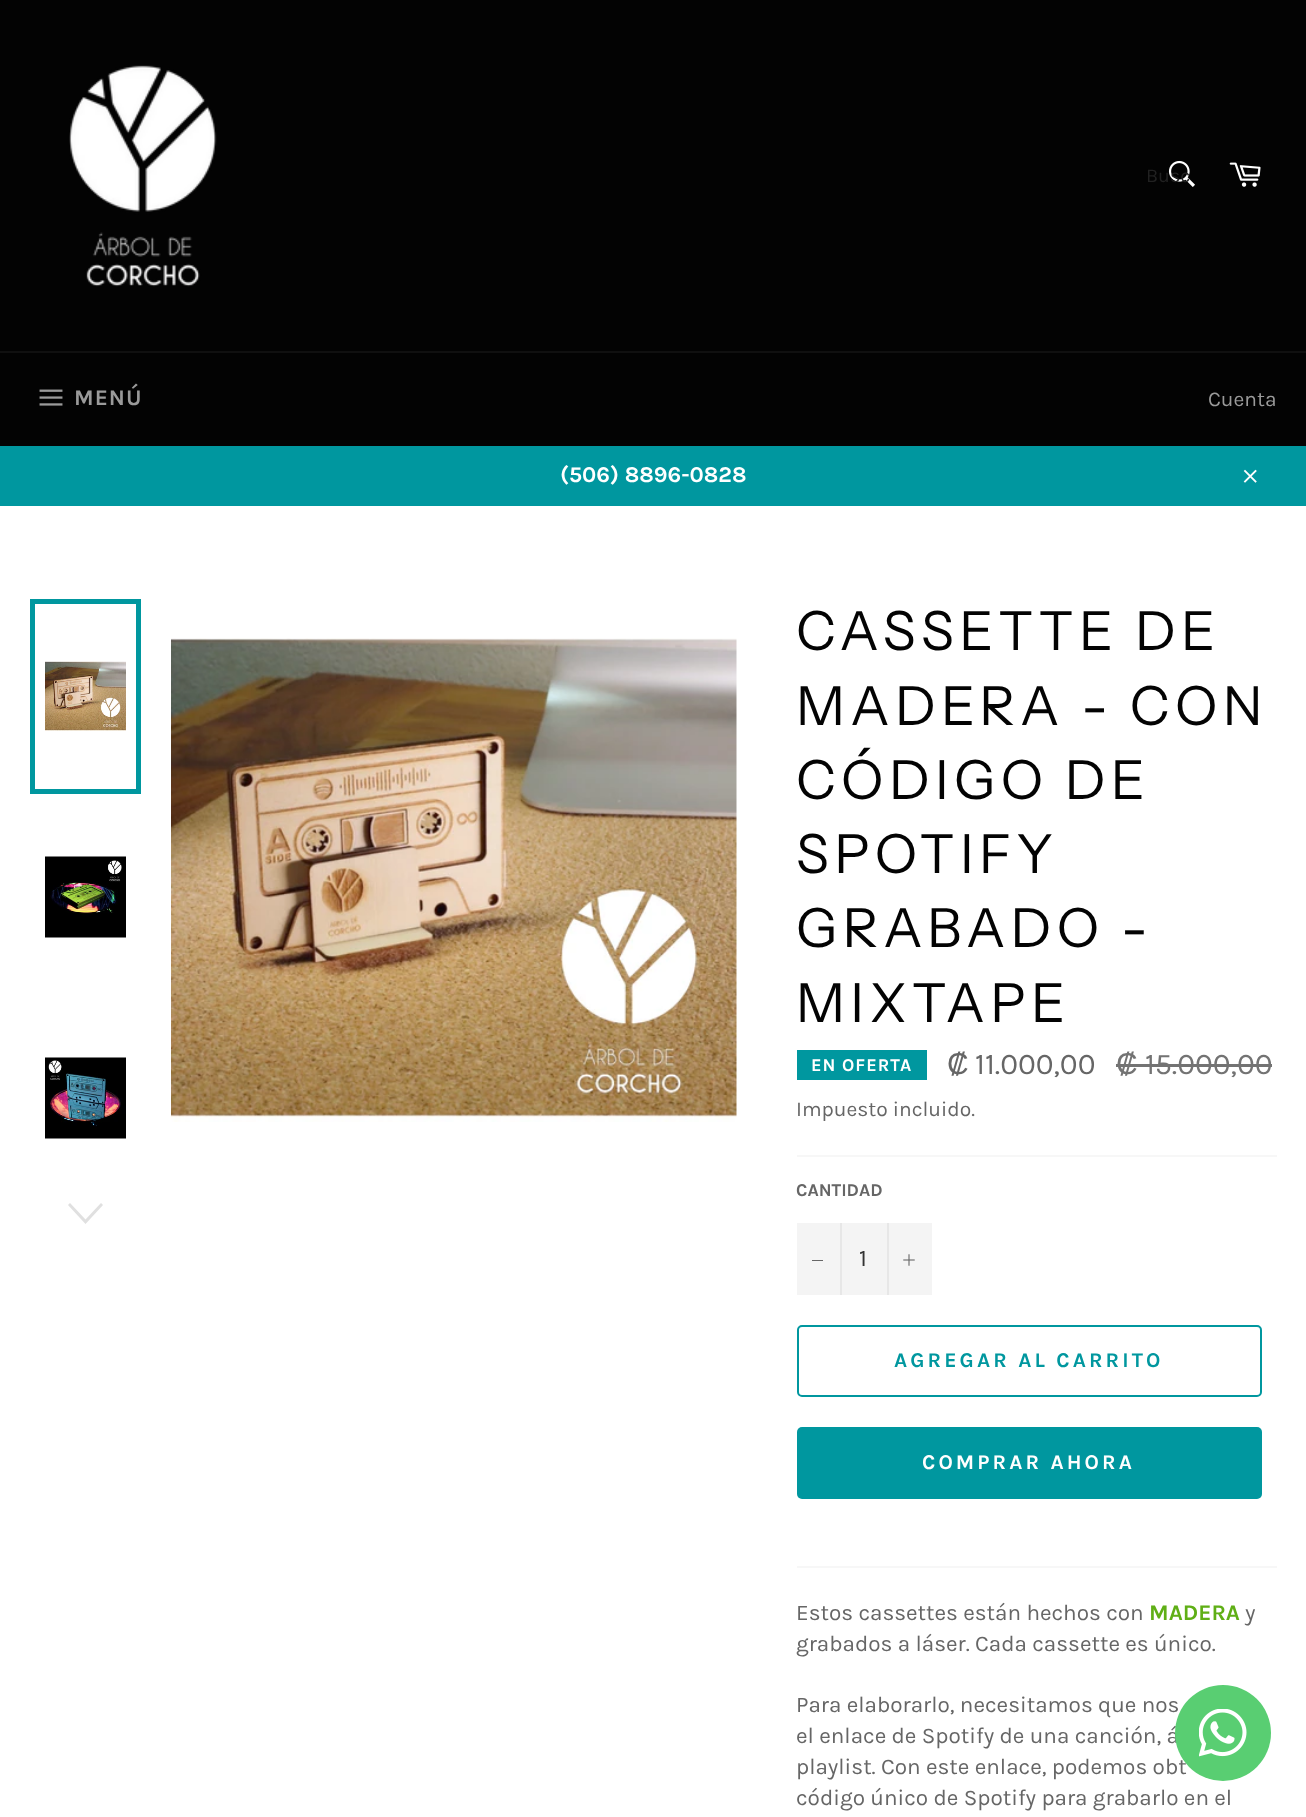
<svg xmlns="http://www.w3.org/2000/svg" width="1306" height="1817">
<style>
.a{font:19.5px Karla;fill:#212121}
.b{font:bold 22.5px Karla;letter-spacing:1px;fill:#9a9a9a}
.c{font:21px Karla;fill:#9a9a9a}
.d{font:bold 22.5px Karla;fill:#fff}
.e{font:54px Instrument Sans;letter-spacing:5.4px;fill:#030303}
.f{font:bold 18px Karla;letter-spacing:1px;fill:#fff}
.g{font:30px Liberation Sans;fill:#666}
.h{font:30px Karla;fill:#666}
.i{font:30px Liberation Sans;fill:#737373}
.j{font:30px Karla;fill:#737373}
.k{font:21px Karla;fill:#666}
.l{font:bold 18px Karla;fill:#666}
.m{font:24px Karla;fill:#333}
.n{font:bold 21px Karla;letter-spacing:3.1px;fill:#00979f}
.o{font:bold 21px Karla;letter-spacing:3.1px;fill:#fff}
.p{font:22.5px Karla;fill:#666}
.q{font:bold 22.5px Karla;fill:#5faf16}
</style>
<rect width="100%" height="100%" fill="#030303"/>
<image href="1.png" x="69" y="65" width="148" height="222"/>
<image href="2.png" x="1168" y="160" width="27" height="27"/>
<image href="3.png" x="1229" y="162" width="32" height="25"/>
<path fill="#101010" d="M0 351h1306v2H0z"/>
<image href="4.png" x="39" y="389" width="24" height="17"/>
<path fill="#00979f" d="M0 446h1306v60H0z"/>
<image href="5.png" x="1243" y="469" width="14" height="14"/>
<path fill="#fff" d="M0 506h1306v1311H0z"/>
<image href="6.png" x="45" y="661" width="81" height="70"/>
<path fill="none" stroke="#00979f" stroke-width="5" d="M32.5 601.5h106v190H32.5z"/>
<image href="7.png" x="45" y="856" width="81" height="82"/>
<image href="8.png" x="45" y="1057" width="81" height="82"/>
<path fill="#e0e0e0" d="M101 1203l2 2l-17.5 19l-17.5-19l2-2l15.5 16.5z"/>
<image href="9.png" x="171" y="638" width="566" height="484"/>
<path fill="#00979f" d="M797 1050h130v30H797z"/>
<path fill="#737373" d="M1116 1064h156v3H1116z"/>
<path fill="#f7f7f7" d="M797 1155h480v2H797z"/>
<path fill="#f4f4f4" d="M797 1223h135v72H797z"/>
<path fill="#e7e7e7" d="M840 1223h2v72H840z"/>
<path fill="#666" d="M812 1260h11v1H812z"/>
<path fill="#e7e7e7" d="M887 1223h2v72H887z"/>
<image href="10.png" x="903" y="1254" width="12" height="12"/>
<rect fill="none" stroke="#00979f" stroke-width="2" x="798" y="1326" width="463" height="70" rx="4"/>
<rect fill="#00979f" x="797" y="1427" width="465" height="72" rx="5"/>
<path fill="#f7f7f7" d="M797 1566h480v2H797z"/>
<text class="a" x="1146" y="182">Busc</text>
<text class="b" x="74" y="405">MENÚ</text>
<text class="c" x="1208" y="406">Cuenta</text>
<text class="d" x="560" y="482">(506) 8896-0828</text>
<text class="e" x="796" y="650">CASSETTE DE</text>
<text class="e" x="796" y="725">MADERA - CON</text>
<text class="e" x="796" y="799">CÓDIGO DE</text>
<text class="e" x="796" y="873">SPOTIFY</text>
<text class="e" x="796" y="947">GRABADO -</text>
<text class="e" x="796" y="1022">MIXTAPE</text>
<text class="f" x="811" y="1071">EN OFERTA</text>
<text class="g" x="947" y="1074">₡</text>
<text class="h" x="975" y="1074">11.000,00</text>
<text class="i" x="1116" y="1074">₡</text>
<text class="j" x="1145" y="1074">15.000,00</text>
<text class="k" x="796" y="1116">Impuesto incluido.</text>
<text class="l" x="796" y="1196">CANTIDAD</text>
<text class="m" x="859" y="1266">1</text>
<text class="n" x="894" y="1367">AGREGAR AL CARRITO</text>
<text class="o" x="922" y="1469">COMPRAR AHORA</text>
<text class="p" x="796" y="1620">Estos cassettes están hechos con</text>
<text class="q" x="1149" y="1620">MADERA</text>
<text class="p" x="1245" y="1620">y</text>
<text class="p" x="796" y="1651">grabados a láser. Cada cassette es único.</text>
<text class="p" x="796" y="1712">Para elaborarlo, necesitamos que nos</text>
<text class="p" x="796" y="1743">el enlace de Spotify de una canción, á</text>
<text class="p" x="796" y="1774">playlist. Con este enlace, podemos obt</text>
<text class="p" x="796" y="1805">código único de Spotify para grabarlo en el</text>
<circle fill="#59ce72" cx="1223" cy="1733" r="48"/>
<image href="11.png" x="1199" y="1709" width="48" height="48"/>
</svg>
